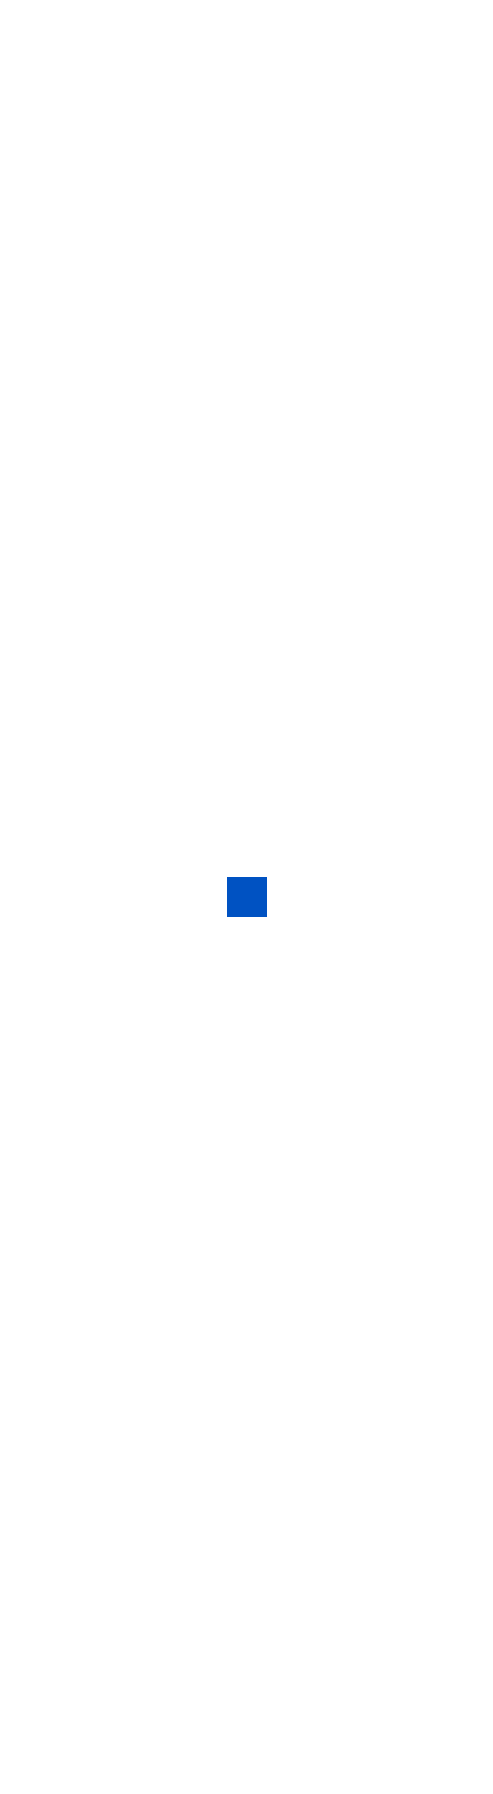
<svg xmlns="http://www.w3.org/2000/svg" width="493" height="1794">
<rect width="100%" height="100%" fill="#fff"/>
<path fill="#0052c2" d="M227 877h40v40H227z"/>
</svg>
